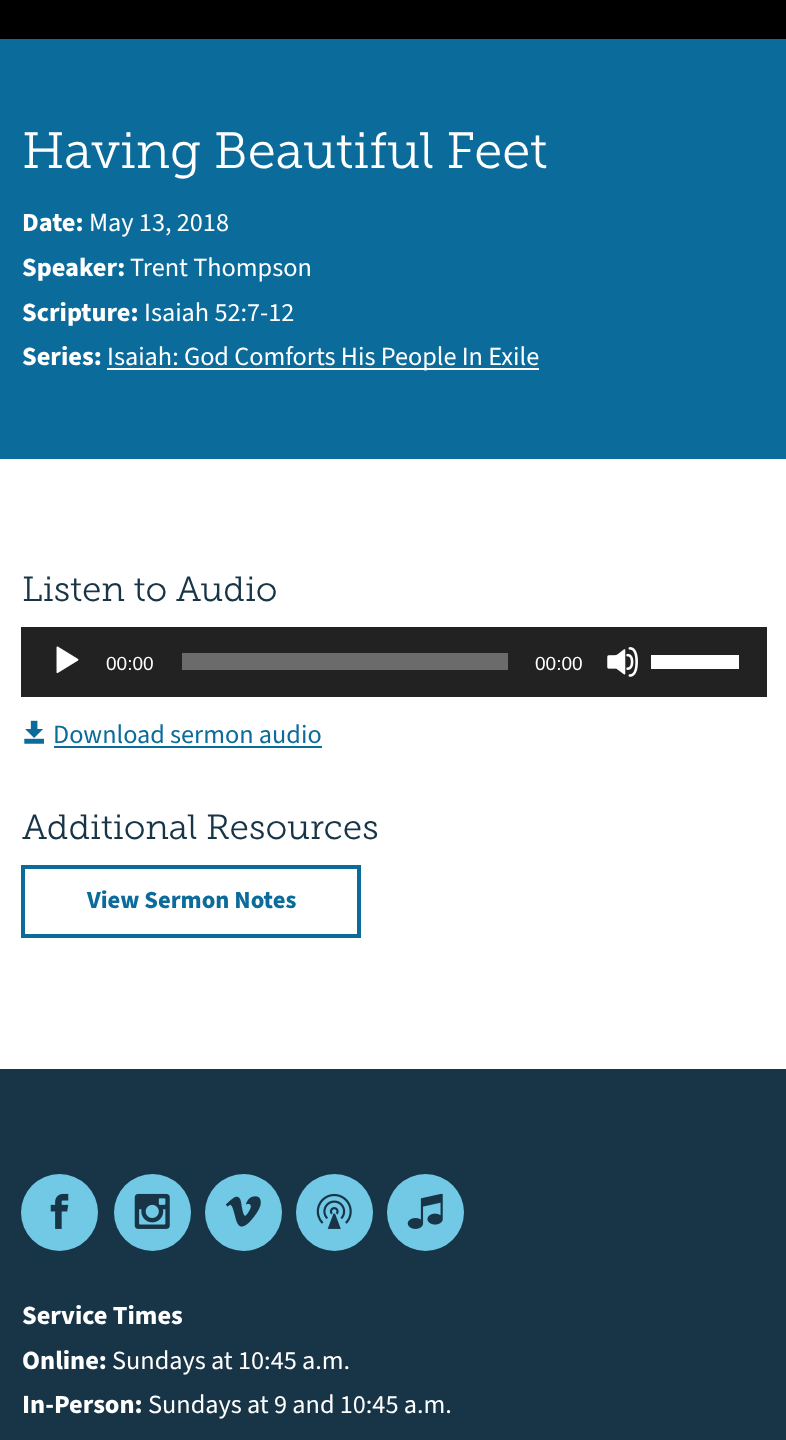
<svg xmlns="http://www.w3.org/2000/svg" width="786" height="1440">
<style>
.a{font:300 50.75px 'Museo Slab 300';fill:#fff}
.b{font:bold 26.25px Source Sans Pro;fill:#fff}
.c{font:26.25px Source Sans Pro;fill:#fff}
.d{font:300 35px 'Museo Slab 300';fill:#173547}
.e{font:19px Liberation Sans;fill:#fff}
.f{font:26.25px Source Sans Pro;fill:#0b6b9b}
.g{font:bold 24.5px Source Sans Pro;fill:#0b6b9b}
</style>
<rect width="100%" height="100%" fill="#fff"/>
<path fill="#0b6b9b" d="M0 39h786v420H0z"/>
<path fill="#000" d="M0 0h786v39H0z"/>
<path fill="#fff" d="M107 368h432v2H107z"/>
<path fill="#222" d="M21 627h746v70H21z"/>
<image href="1.png" x="56" y="646" width="23" height="28"/>
<path fill="#6b6b6b" d="M182 653h326v17H182z"/>
<image href="2.png" x="607" y="647" width="31" height="30"/>
<path fill="#fff" d="M651 655h88v14H651z"/>
<image href="3.png" x="24" y="720" width="20" height="24"/>
<path fill="#0b6b9b" d="M54 746h268v2H54z"/>
<path fill="none" stroke="#0b6b9b" stroke-width="4" d="M23 867h336v69H23z"/>
<path fill="#173547" d="M0 1069h786v371H0z"/>
<circle fill="#71c9e5" cx="59.5" cy="1212.5" r="38.5"/>
<image href="4.png" x="50" y="1193" width="19" height="36"/>
<circle fill="#71c9e5" cx="152.5" cy="1212.5" r="38.5"/>
<image href="5.png" x="134" y="1193" width="36" height="36"/>
<circle fill="#71c9e5" cx="243.5" cy="1212.5" r="38.5"/>
<image href="6.png" x="225" y="1196" width="36" height="31"/>
<circle fill="#71c9e5" cx="334.5" cy="1212.5" r="38.5"/>
<image href="7.png" x="316" y="1193" width="36" height="36"/>
<circle fill="#71c9e5" cx="425.5" cy="1212.5" r="38.5"/>
<image href="8.png" x="407" y="1193" width="36" height="36"/>
<text class="a" x="22" y="168">Having Beautiful Feet</text>
<text class="b" x="22" y="231">Date:</text>
<text class="c" x="89" y="231">May 13, 2018</text>
<text class="b" x="22" y="276">Speaker:</text>
<text class="c" x="130" y="276">Trent Thompson</text>
<text class="b" x="22" y="321">Scripture:</text>
<text class="c" x="144" y="321">Isaiah 52:7-12</text>
<text class="b" x="22" y="365">Series:</text>
<text class="c" x="107" y="365">Isaiah: God Comforts His People In Exile</text>
<text class="d" x="22" y="601">Listen to Audio</text>
<text class="e" x="106" y="670">00:00</text>
<text class="e" x="535" y="670">00:00</text>
<text class="f" x="53" y="743">Download sermon audio</text>
<text class="d" x="22" y="839">Additional Resources</text>
<text class="g" x="87" y="908">View Sermon Notes</text>
<text class="b" x="22" y="1324">Service Times</text>
<text class="b" x="22" y="1369">Online:</text>
<text class="c" x="112" y="1369">Sundays at 10:45 a.m.</text>
<text class="b" x="22" y="1413">In-Person:</text>
<text class="c" x="148" y="1413">Sundays at 9 and 10:45 a.m.</text>
</svg>
